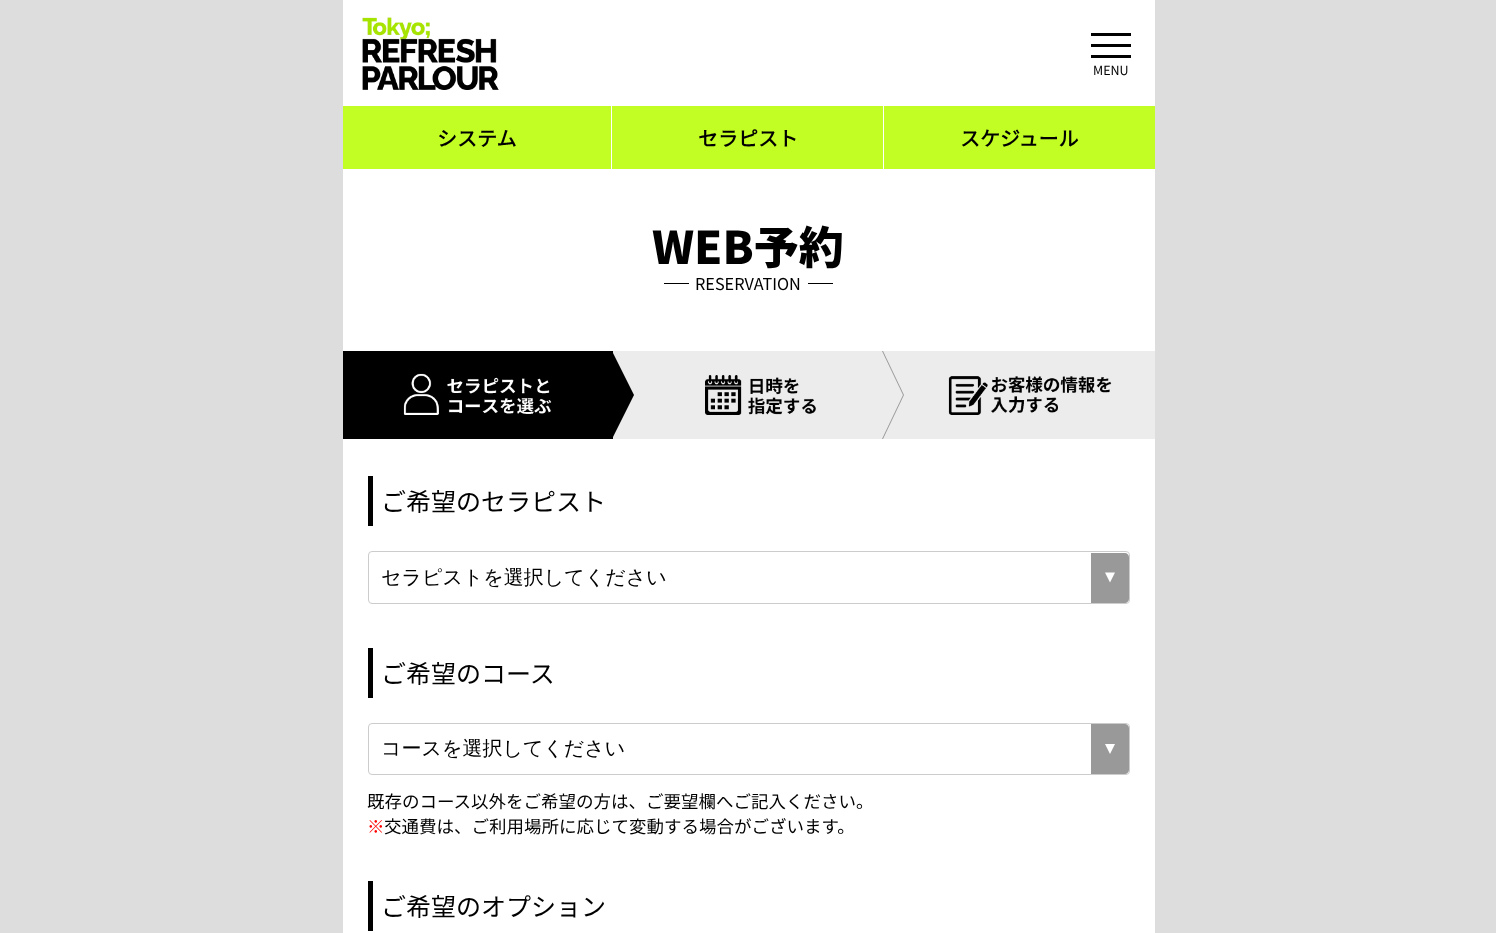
<svg xmlns="http://www.w3.org/2000/svg" width="1496" height="933">
<style>
.a{font:12.5px Noto Sans JP;fill:#000}
.b{font:bold 20px Noto Sans JP;fill:#000}
.c{font:900 45px Noto Sans JP;fill:#000}
.d{font:16.25px Noto Sans JP;fill:#000}
.e{font:25px Noto Sans JP;fill:#000}
.f{font:500 20px WenQuanYi Zen Hei;fill:#000}
.g{font:17.5px Noto Sans JP;fill:#000}
.h{font:17.5px Noto Sans JP;fill:#f00}
</style>
<rect width="100%" height="100%" fill="#ddd"/>
<path fill="#fff" d="M343 0h812v933H343z"/>
<image href="1.png" x="362" y="17" width="137" height="73"/>
<path fill="#000" d="M1091 33h40v3H1091z"/>
<path fill="#000" d="M1091 44h40v3H1091z"/>
<path fill="#000" d="M1091 55h40v3H1091z"/>
<path fill="#c2fe23" d="M343 106h812v63H343z"/>
<path fill="#fff" d="M611 106h1v63H611z"/>
<path fill="#fff" d="M883 106h1v63H883z"/>
<path fill="#000" d="M664 283h25v1H664z"/>
<path fill="#000" d="M808 283h25v1H808z"/>
<path fill="#000" d="M343 351h270v88H343z"/>
<image href="2.png" x="403" y="373" width="149" height="42"/>
<path fill="#ececec" d="M613 351h542v88H613z"/>
<path fill="#000" d="M612 439v-88l22 44z"/>
<image href="3.png" x="705" y="375" width="111" height="40"/>
<path fill="#999" d="M882 351h1l21 44h-1z"/>
<path fill="#999" d="M903 395h1l-21 44h-1z"/>
<image href="4.png" x="948" y="376" width="164" height="39"/>
<path fill="#000" d="M368 476h5v50H368z"/>
<rect fill="none" stroke="#ccc" x="368.5" y="551.5" width="761" height="52" rx="3.5"/>
<path fill="#999" d="M1091 553h34c2 0 4 2 4 4v42c0 2-2 4-4 4h-34z"/>
<path fill="#fff" d="M1105 572.5h10l-5 10z"/>
<path fill="#000" d="M368 648h5v50H368z"/>
<rect fill="none" stroke="#ccc" x="368.5" y="723.5" width="761" height="51" rx="3.5"/>
<path fill="#999" d="M1091 724h34c2 0 4 2 4 4v42c0 2-2 4-4 4h-34z"/>
<path fill="#fff" d="M1105 744h10l-5 10z"/>
<path fill="#000" d="M368 881h5v50H368z"/>
<text class="a" x="1093" y="75">MENU</text>
<text class="b" x="437" y="146">システム</text>
<text class="b" x="698" y="146">セラピスト</text>
<text class="b" x="960" y="146">スケジュール</text>
<text class="c" x="652" y="264">WEB予約</text>
<text class="d" x="695" y="290">RESERVATION</text>
<text class="e" x="381" y="511">ご希望のセラピスト</text>
<text class="f" x="381" y="584">セラピストを選択してください</text>
<text class="e" x="381" y="683">ご希望のコース</text>
<text class="f" x="381" y="755">コースを選択してください</text>
<text class="g" x="367" y="808">既存のコース以外をご希望の方は、ご要望欄へご記入ください。</text>
<text class="h" x="367" y="833">※</text>
<text class="g" x="384" y="833">交通費は、ご利用場所に応じて変動する場合がございます。</text>
<text class="e" x="381" y="916">ご希望のオプション</text>
</svg>
